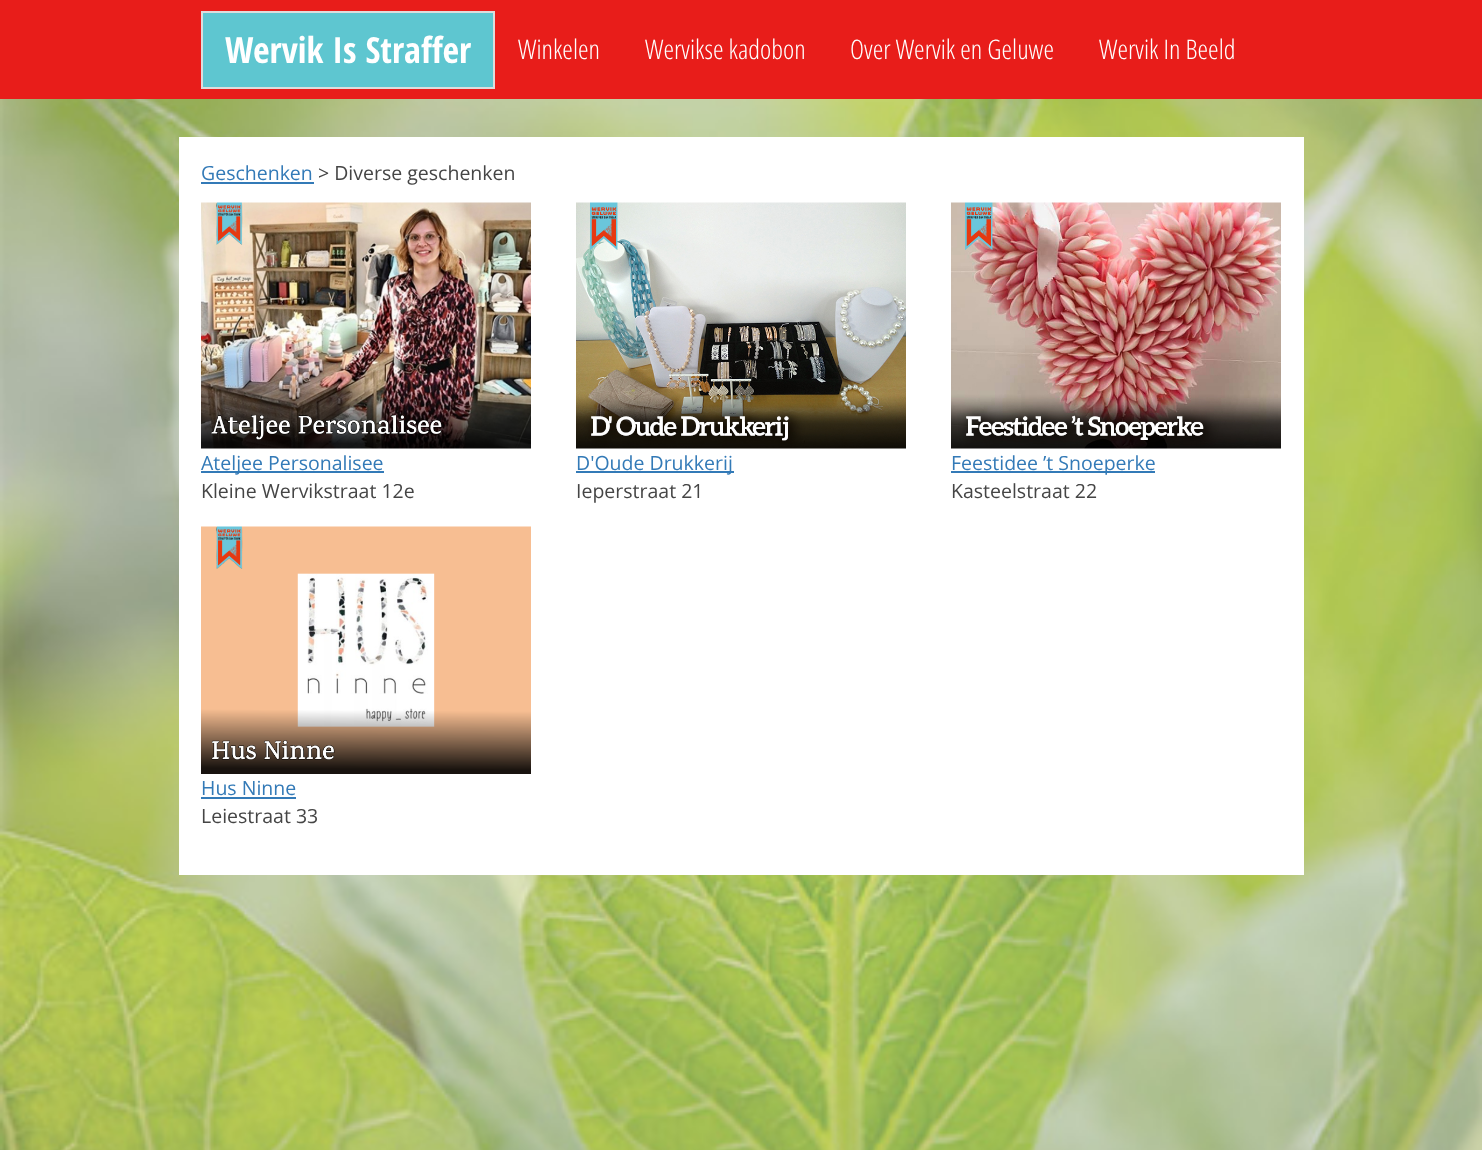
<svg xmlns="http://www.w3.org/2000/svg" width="1482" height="1150">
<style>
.a{font:bold 36px Open Sans Condensed;fill:#fff}
.b{font:300 27px Open Sans Condensed;fill:#fff}
.c{font:19.5px Open Sans;fill:#337ab7}
.d{font:19.5px Open Sans;fill:#454545}
</style>
<rect width="100%" height="100%" fill="#fff"/>
<image href="1.png" x="0" y="99" width="1482" height="1051"/>
<path fill="#e81d1a" d="M0 0h1482v99H0z"/>
<path fill="#5ec6d0" stroke="#ddd" stroke-width="2" d="M202 12h292v76H202z"/>
<path fill="#fff" d="M179 137h1125v738H179z"/>
<path fill="#337ab7" d="M201 182h113v2H201z"/>
<image href="2.png" x="201" y="202" width="330" height="247"/>
<path fill="#337ab7" d="M201 471h183v2H201z"/>
<image href="3.png" x="576" y="202" width="330" height="247"/>
<path fill="#337ab7" d="M576 471h158v2H576z"/>
<image href="4.png" x="951" y="202" width="330" height="247"/>
<path fill="#337ab7" d="M951 471h204v2H951z"/>
<image href="5.png" x="201" y="526" width="330" height="248"/>
<path fill="#337ab7" d="M201 797h95v2H201z"/>
<text class="a" x="225" y="63">Wervik Is Straffer</text>
<text class="b" x="518" y="59">Winkelen</text>
<text class="b" x="645" y="59">Wervikse kadobon</text>
<text class="b" x="850" y="59">Over Wervik en Geluwe</text>
<text class="b" x="1099" y="59">Wervik In Beeld</text>
<text class="c" x="201" y="180">Geschenken</text>
<text class="d" x="318" y="180">&gt; Diverse geschenken</text>
<text class="c" x="201" y="470">Ateljee Personalisee</text>
<text class="d" x="201" y="498">Kleine Wervikstraat 12e</text>
<text class="c" x="576" y="470">D'Oude Drukkerij</text>
<text class="d" x="576" y="498">Ieperstraat 21</text>
<text class="c" x="951" y="470">Feestidee ’t Snoeperke</text>
<text class="d" x="951" y="498">Kasteelstraat 22</text>
<text class="c" x="201" y="795">Hus Ninne</text>
<text class="d" x="201" y="823">Leiestraat 33</text>
</svg>
